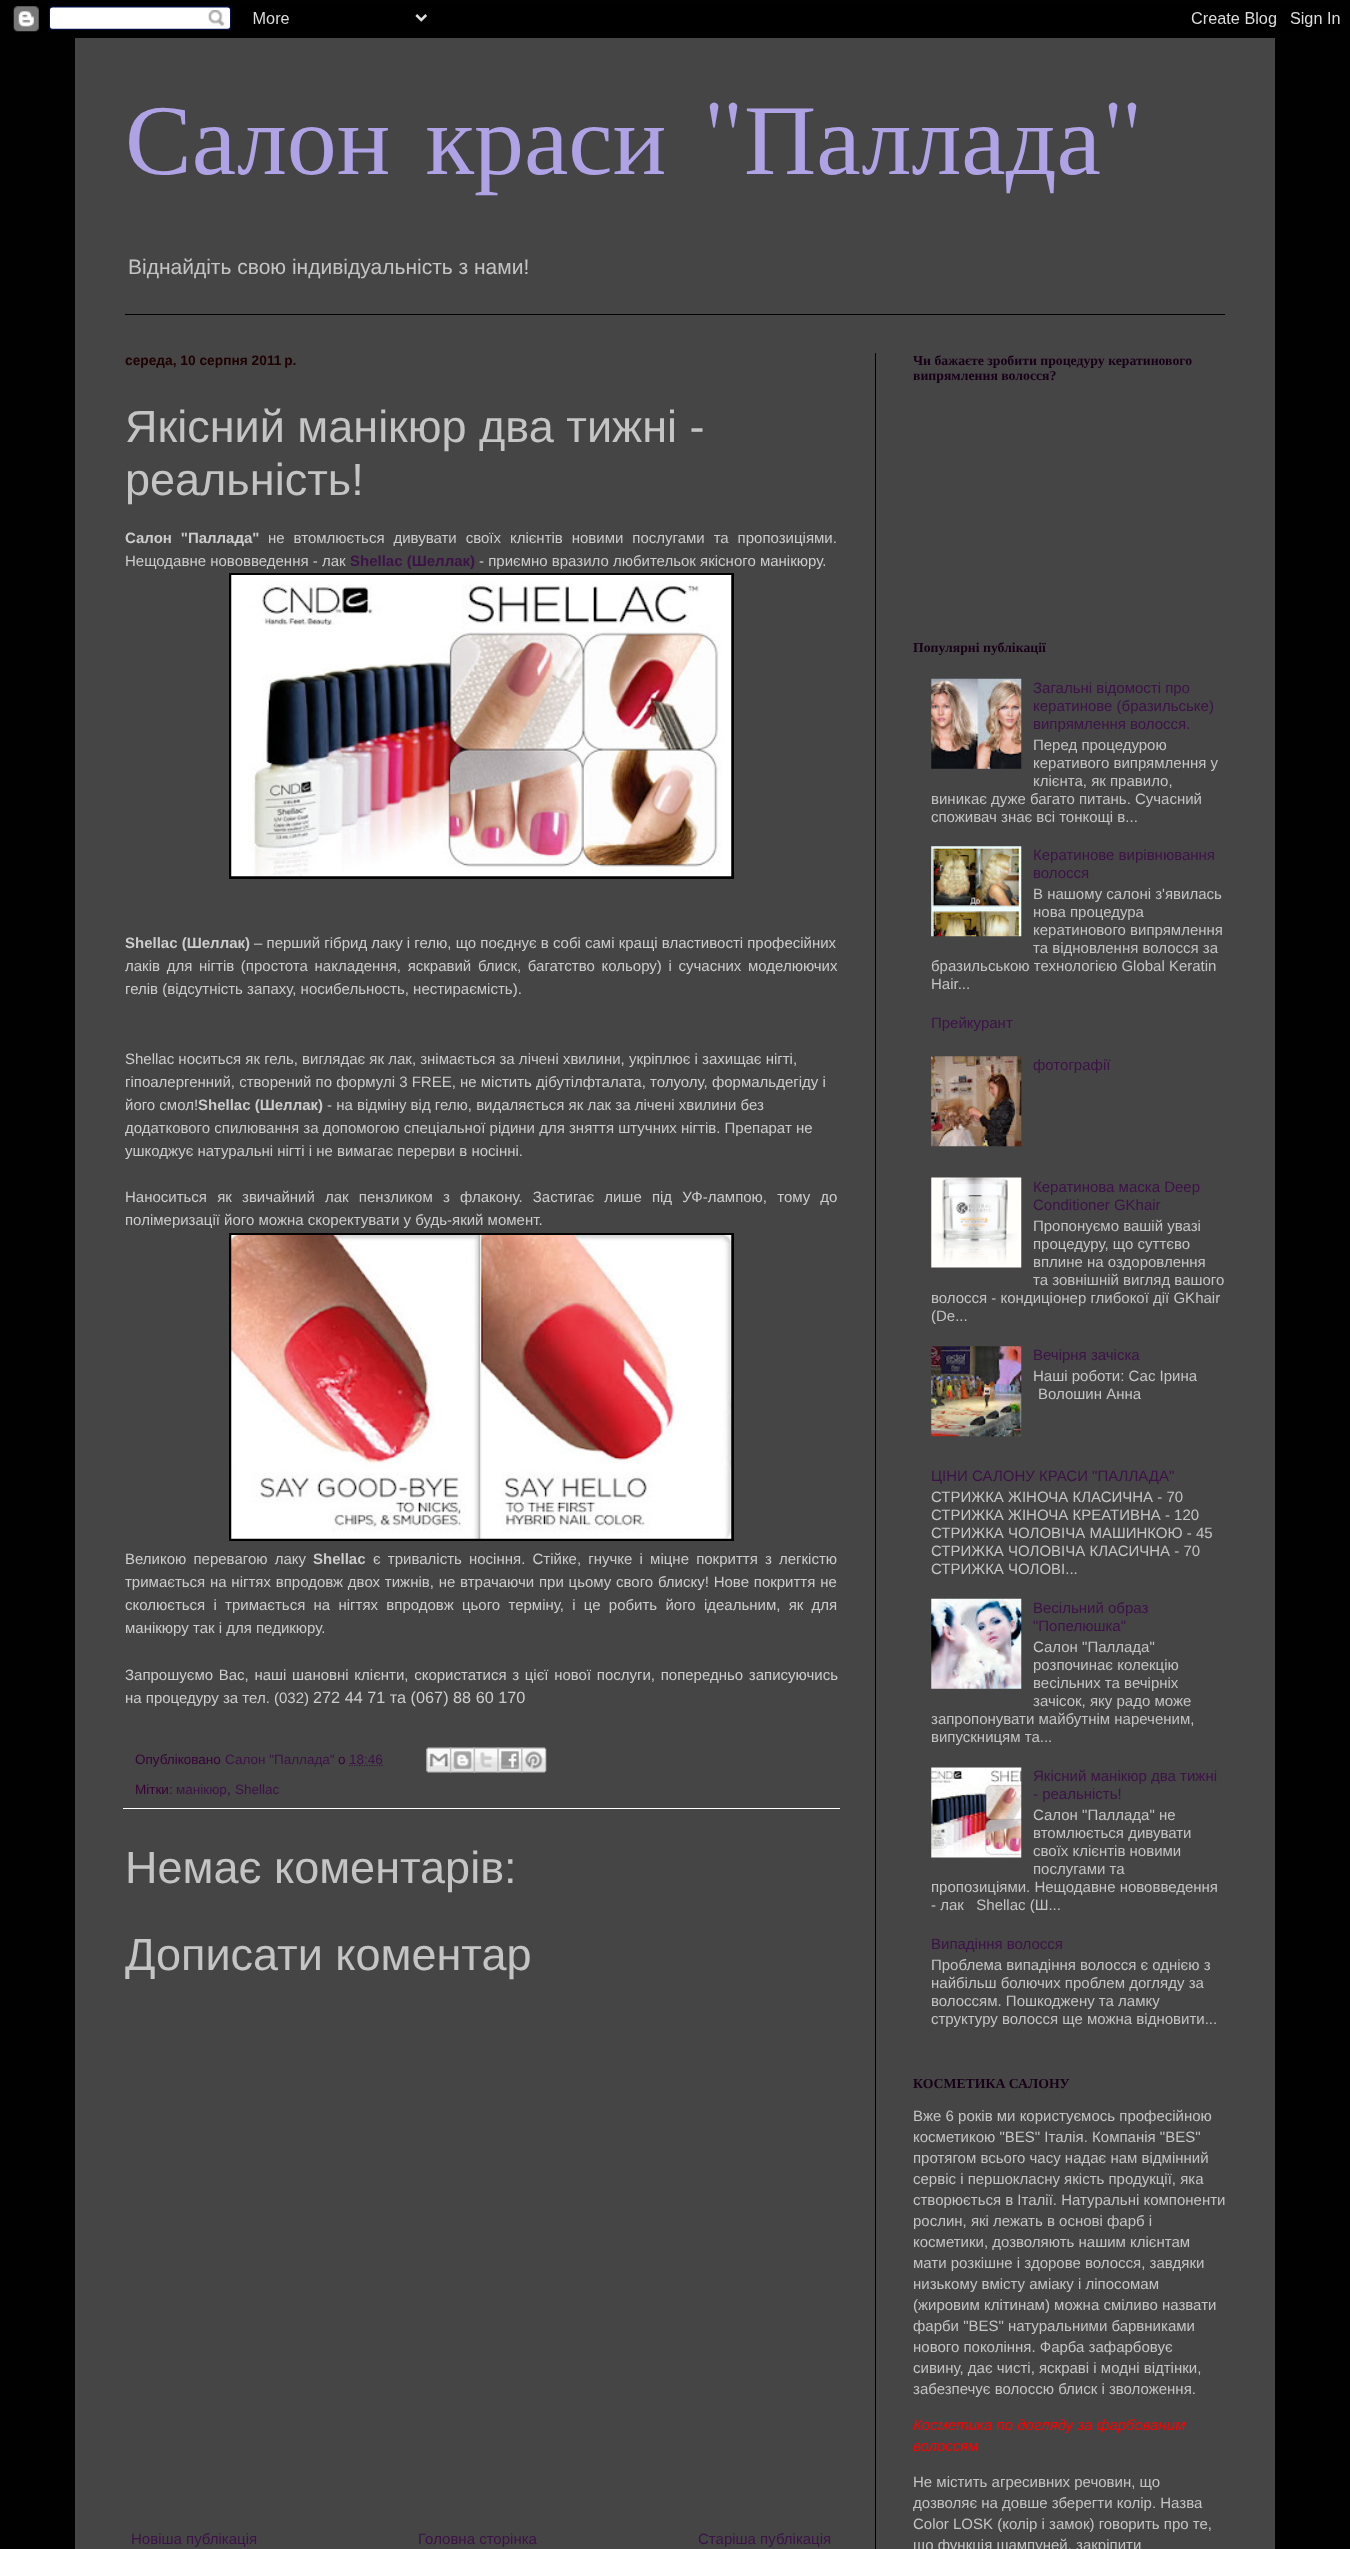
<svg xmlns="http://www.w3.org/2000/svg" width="1350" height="2549">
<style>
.a{font:100px Liberation Serif;fill:#afa2e5}
.b{font:100px GFS Didot;fill:#afa2e5}
.c{font:21px Liberation Sans;fill:#c4c4c4}
.d{font:bold 13.75px Liberation Sans;fill:#1f0101}
.e{font:45px Liberation Sans;fill:#c4c4c4}
.f{font:bold 15px Liberation Sans;fill:#ccc}
.g{font:15px Liberation Sans;fill:#ccc}
.h{font:bold 15px Liberation Sans;fill:#3d1248}
.i{font:16.25px Liberation Sans;fill:#ccc}
.j{font:13.5px Liberation Sans;fill:#370237}
.k{font:13.5px Liberation Sans;fill:#3d1248}
.l{font:15px Liberation Sans;fill:#3d1248}
.m{font:bold 13.75px Liberation Serif;fill:#190019}
.n{font:15px Liberation Sans;fill:#c4c4c4}
.o{font:italic 15px Liberation Sans;fill:#f00}
</style>
<rect width="100%" height="100%" fill="#010101"/>
<image href="1.png" x="13" y="6" width="1327" height="26"/>
<path fill="#454545" d="M75 38h1200v2511H75z"/>
<path fill="#000" d="M125 314h1100v1H125z"/>
<path fill="#000" d="M875 353h1v2196H875z"/>
<path fill="#000" d="M229 573h505v306H229z"/>
<image href="2.png" x="231" y="575" width="501" height="302"/>
<path fill="#000" d="M229 1233h505v308H229z"/>
<image href="3.png" x="231" y="1235" width="501" height="304"/>
<path fill="#fff" d="M123 1808h717v1H123z"/>
<path fill="none" stroke="#3d1248" stroke-width="1.2" stroke-dasharray="1.25 1.25" d="M349 1765.5h34"/>
<image href="4.png" x="426" y="1747" width="26" height="26"/>
<image href="5.png" x="450" y="1747" width="25" height="26"/>
<image href="6.png" x="473" y="1747" width="26" height="26"/>
<image href="7.png" x="497" y="1747" width="26" height="26"/>
<image href="8.png" x="521" y="1747" width="26" height="26"/>
<image href="9.png" x="931" y="678" width="91" height="91"/>
<image href="10.png" x="931" y="846" width="91" height="91"/>
<image href="11.png" x="931" y="1056" width="91" height="91"/>
<image href="12.png" x="931" y="1177" width="91" height="91"/>
<image href="13.png" x="931" y="1346" width="91" height="91"/>
<image href="14.png" x="931" y="1598" width="91" height="91"/>
<image href="15.png" x="931" y="1767" width="91" height="91"/>
<text class="a" x="125" y="174" word-spacing="10">Салон краси</text>
<text class="b" x="702" y="174">"</text>
<text class="a" x="744" y="174">Паллада</text>
<text class="b" x="1101" y="174">"</text>
<text class="c" x="128" y="274">Віднайдіть свою індивідуальність з нами!</text>
<text class="d" x="125" y="365">середа, 10 серпня 2011 р.</text>
<text class="e" x="125" y="442">Якісний манікюр два тижні -</text>
<text class="e" x="125" y="495">реальність!</text>
<text class="f" x="125" y="543" word-spacing="4.75">Салон "Паллада"</text>
<text class="g" x="268" y="543" word-spacing="4.75">не втомлюється дивувати своїх клієнтів новими послугами та пропозиціями.</text>
<text class="g" x="125" y="566">Нещодавне нововведення - лак</text>
<text class="h" x="350" y="566">Shellac (Шеллак)</text>
<text class="g" x="479" y="566">- приємно вразило любительок якісного манікюру.</text>
<text class="f" x="125" y="948">Shellac (Шеллак)</text>
<text class="g" x="254" y="948">– перший гібрид лаку і гелю, що поєднує в собі самі кращі властивості професійних</text>
<text class="g" x="125" y="971" word-spacing="2.5">лаків для нігтів (простота накладення, яскравий блиск, багатство кольору) і сучасних моделюючих</text>
<text class="g" x="125" y="994">гелів (відсутність запаху, носибельность, нестираємість).</text>
<text class="g" x="125" y="1064">Shellac носиться як гель, виглядає як лак, знімається за лічені хвилини, укріплює і захищає нігті,</text>
<text class="g" x="125" y="1087">гіпоалергенний, створений по формулі 3 FREE, не містить дібутілфталата, толуолу, формальдегіду і</text>
<text class="g" x="125" y="1110">його смол!</text>
<text class="f" x="198" y="1110">Shellac (Шеллак)</text>
<text class="g" x="327" y="1110">- на відміну від гелю, видаляється як лак за лічені хвилини без</text>
<text class="g" x="125" y="1133">додаткового спилювання за допомогою спеціальної рідини для зняття штучних нігтів. Препарат не</text>
<text class="g" x="125" y="1156">ушкоджує натуральні нігті і не вимагає перерви в носінні.</text>
<text class="g" x="125" y="1202" word-spacing="6">Наноситься як звичайний лак пензликом з флакону. Застигає лише під УФ-лампою, тому до</text>
<text class="g" x="125" y="1225">полімеризації його можна скоректувати у будь-який момент.</text>
<text class="g" x="125" y="1564" word-spacing="3">Великою перевагою лаку</text>
<text class="f" x="313" y="1564">Shellac</text>
<text class="g" x="373" y="1564" word-spacing="3">є тривалість носіння. Стійке, гнучке і міцне покриття з легкістю</text>
<text class="g" x="125" y="1587" word-spacing="0.6">тримається на нігтях впродовж двох тижнів, не втрачаючи при цьому свого блиску! Нове покриття не</text>
<text class="g" x="125" y="1610" word-spacing="4.1">сколюється і тримається на нігтях впродовж цього терміну, і це робить його ідеальним, як для</text>
<text class="g" x="125" y="1633">манікюру так і для педикюру.</text>
<text class="g" x="125" y="1680" word-spacing="1.5">Запрошуємо Вас, наші шановні клієнти, скористатися з цієї нової послуги, попередньо записуючись</text>
<text class="g" x="125" y="1703">на процедуру за тел. (032)</text>
<text class="i" x="313" y="1703">272 44 71 та (067) 88 60 170</text>
<text class="j" x="135" y="1764">Опубліковано</text>
<text class="k" x="225" y="1764">Салон "Паллада"</text>
<text class="j" x="338" y="1764">о</text>
<text class="k" x="349" y="1764">18:46</text>
<text class="j" x="135" y="1794">Мітки:</text>
<text class="k" x="176" y="1794">манікюр</text>
<text class="j" x="227" y="1794">,</text>
<text class="k" x="235" y="1794">Shellac</text>
<text class="e" x="125" y="1883">Немає коментарів:</text>
<text class="e" x="125" y="1970">Дописати коментар</text>
<text class="l" x="131" y="2544">Новіша публікація</text>
<text class="l" x="418" y="2544">Головна сторінка</text>
<text class="l" x="698" y="2544">Старіша публікація</text>
<text class="m" x="913" y="365">Чи бажаєте зробити процедуру кератинового</text>
<text class="m" x="913" y="380">випрямлення волосся?</text>
<text class="m" x="913" y="652">Популярні публікації</text>
<text class="l" x="1033" y="693">Загальні відомості про</text>
<text class="l" x="1033" y="711">кератинове (бразильське)</text>
<text class="l" x="1033" y="729">випрямлення волосся.</text>
<text class="n" x="1033" y="750">Перед процедурою</text>
<text class="n" x="1033" y="768">керативого випрямлення у</text>
<text class="n" x="1033" y="786">клієнта, як правило,</text>
<text class="n" x="931" y="804">виникає дуже багато питань. Сучасний</text>
<text class="n" x="931" y="822">споживач знає всі тонкощі в...</text>
<text class="l" x="1033" y="860">Кератинове вирівнювання</text>
<text class="l" x="1033" y="878">волосся</text>
<text class="n" x="1033" y="899">В нашому салоні з'явилась</text>
<text class="n" x="1033" y="917">нова процедура</text>
<text class="n" x="1033" y="935">кератинового випрямлення</text>
<text class="n" x="1033" y="953">та відновлення волосся за</text>
<text class="n" x="931" y="971">бразильською технологією Global Keratin</text>
<text class="n" x="931" y="989">Hair...</text>
<text class="l" x="931" y="1028">Прейкурант</text>
<text class="l" x="1033" y="1070">фотографії</text>
<text class="l" x="1033" y="1192">Кератинова маска Deep</text>
<text class="l" x="1033" y="1210">Conditioner GKhair</text>
<text class="n" x="1033" y="1231">Пропонуємо вашій увазі</text>
<text class="n" x="1033" y="1249">процедуру, що суттєво</text>
<text class="n" x="1033" y="1267">вплине на оздоровлення</text>
<text class="n" x="1033" y="1285">та зовнішній вигляд вашого</text>
<text class="n" x="931" y="1303">волосся - кондиціонер глибокої дії GKhair</text>
<text class="n" x="931" y="1321">(De...</text>
<text class="l" x="1033" y="1360">Вечірня зачіска</text>
<text class="n" x="1033" y="1381">Наші роботи: Сас Ірина</text>
<text class="n" x="1038" y="1399">Волошин Анна</text>
<text class="l" x="931" y="1481">ЦІНИ САЛОНУ КРАСИ "ПАЛЛАДА"</text>
<text class="n" x="931" y="1502">СТРИЖКА ЖІНОЧА КЛАСИЧНА - 70</text>
<text class="n" x="931" y="1520">СТРИЖКА ЖІНОЧА КРЕАТИВНА - 120</text>
<text class="n" x="931" y="1538">СТРИЖКА ЧОЛОВІЧА МАШИНКОЮ - 45</text>
<text class="n" x="931" y="1556">СТРИЖКА ЧОЛОВІЧА КЛАСИЧНА - 70</text>
<text class="n" x="931" y="1574">СТРИЖКА ЧОЛОВІ...</text>
<text class="l" x="1033" y="1613">Весільний образ</text>
<text class="l" x="1033" y="1631">"Попелюшка"</text>
<text class="n" x="1033" y="1652">Салон "Паллада"</text>
<text class="n" x="1033" y="1670">розпочинає колекцію</text>
<text class="n" x="1033" y="1688">весільних та вечірніх</text>
<text class="n" x="1033" y="1706">зачісок, яку радо може</text>
<text class="n" x="931" y="1724">запропонувати майбутнім нареченим,</text>
<text class="n" x="931" y="1742">випускницям та...</text>
<text class="l" x="1033" y="1781">Якісний манікюр два тижні</text>
<text class="l" x="1033" y="1799">- реальність!</text>
<text class="n" x="1033" y="1820">Салон "Паллада" не</text>
<text class="n" x="1033" y="1838">втомлюється дивувати</text>
<text class="n" x="1033" y="1856">своїх клієнтів новими</text>
<text class="n" x="1033" y="1874">послугами та</text>
<text class="n" x="931" y="1892">пропозиціями. Нещодавне нововведення</text>
<text class="n" xml:space="preserve" x="931" y="1910">- лак   Shellac (Ш...</text>
<text class="l" x="931" y="1949">Випадіння волосся</text>
<text class="n" x="931" y="1970">Проблема випадіння волосся є однією з</text>
<text class="n" x="931" y="1988">найбільш болючих проблем догляду за</text>
<text class="n" x="931" y="2006">волоссям. Пошкоджену та ламку</text>
<text class="n" x="931" y="2024">структуру волосся ще можна відновити...</text>
<text class="m" x="913" y="2088">КОСМЕТИКА САЛОНУ</text>
<text class="n" x="913" y="2121">Вже 6 років ми користуємось професійною</text>
<text class="n" x="913" y="2142">косметикою "BES" Італія. Компанія "BES"</text>
<text class="n" x="913" y="2163">протягом всього часу надає нам відмінний</text>
<text class="n" x="913" y="2184">сервіс і першокласну якість продукції, яка</text>
<text class="n" x="913" y="2205">створюється в Італії. Натуральні компоненти</text>
<text class="n" x="913" y="2226">рослин, які лежать в основі фарб і</text>
<text class="n" x="913" y="2247">косметики, дозволяють нашим клієнтам</text>
<text class="n" x="913" y="2268">мати розкішне і здорове волосся, завдяки</text>
<text class="n" x="913" y="2289">низькому вмісту аміаку і ліпосомам</text>
<text class="n" x="913" y="2310">(жировим клітинам) можна сміливо назвати</text>
<text class="n" x="913" y="2331">фарби "BES" натуральними барвниками</text>
<text class="n" x="913" y="2352">нового покоління. Фарба зафарбовує</text>
<text class="n" x="913" y="2373">сивину, дає чисті, яскраві і модні відтінки,</text>
<text class="n" x="913" y="2394">забезпечує волоссю блиск і зволоження.</text>
<text class="o" x="913" y="2430">Косметика по догляду за фарбованим</text>
<text class="o" x="913" y="2451">волоссям</text>
<text class="n" x="913" y="2487">Не містить агресивних речовин, що</text>
<text class="n" x="913" y="2508">дозволяє на довше зберегти колір. Назва</text>
<text class="n" x="913" y="2529">Color LOSK (колір і замок) говорить про те,</text>
<text class="n" x="913" y="2550">що функція шампуней, закріпити</text>
</svg>
